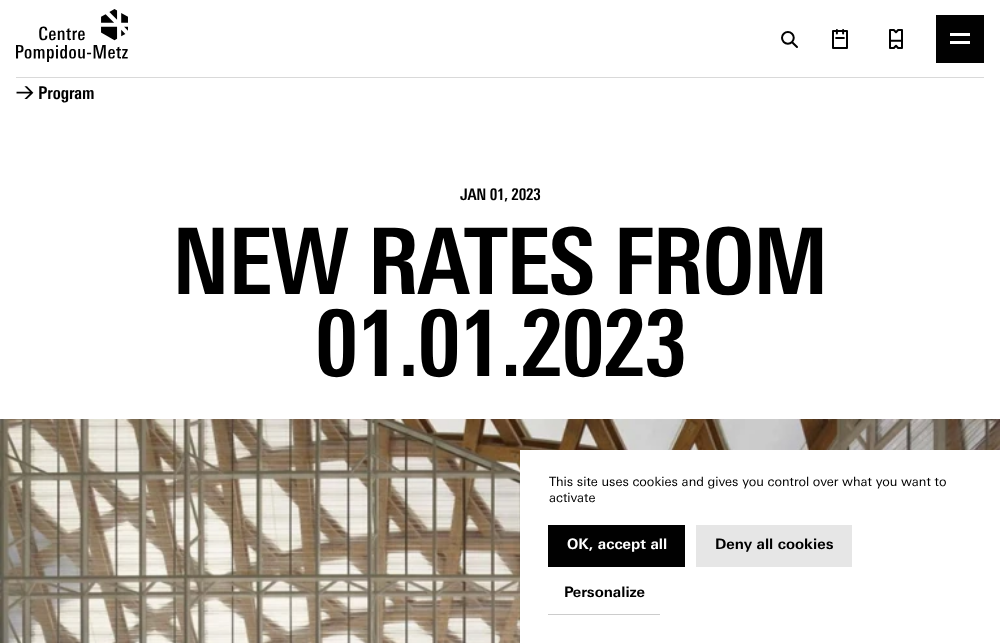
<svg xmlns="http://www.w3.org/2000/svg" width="1000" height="643">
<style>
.a{font:bold 17.5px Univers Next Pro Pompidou;fill:#000}
.b{font:bold 16px Univers Next Pro Pompidou;letter-spacing:-0.25px;fill:#000}
.c{font:bold 91.5px Univers Next Pro Pompidou;letter-spacing:-1.8px;fill:#000}
.d{font:12.8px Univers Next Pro;fill:#000}
.e{font:bold 14.5px Univers Next Pro;fill:#fff}
.f{font:bold 14.5px Univers Next Pro;fill:#000}
</style>
<rect width="100%" height="100%" fill="#fff"/>
<image href="1.png" x="16" y="9" width="112" height="53"/>
<image href="2.png" x="781" y="31" width="17" height="17"/>
<image href="3.png" x="832" y="29" width="16" height="20"/>
<image href="4.png" x="889" y="29" width="14" height="20"/>
<path fill="#010101" d="M936 15h48v48H936z"/>
<path fill="#fff" d="M950 33h20v3H950z"/>
<path fill="#fff" d="M950 41h20v3H950z"/>
<path fill="#d9d9d9" d="M16 77h968v1H16z"/>
<image href="5.png" x="0" y="419" width="1000" height="224"/>
<path fill="#fff" d="M520 450h480v193H520z"/>
<path fill="#010101" d="M548 525h137v42H548z"/>
<path fill="#e6e6e6" d="M696 525h156v42H696z"/>
<path fill="#ccc" d="M548 614h112v1H548z"/>
<text class="a" x="16" y="99">→ Program</text>
<text class="b" x="460" y="200">JAN 01, 2023</text>
<text class="c" x="172" y="294">NEW RATES FROM</text>
<text class="c" x="315" y="376">01.01.2023</text>
<text class="d" x="549" y="486">This site uses cookies and gives you control over what you want to</text>
<text class="d" x="549" y="502">activate</text>
<text class="e" x="567" y="549">OK, accept all</text>
<text class="f" x="715" y="549">Deny all cookies</text>
<text class="f" x="564" y="597">Personalize</text>
</svg>
